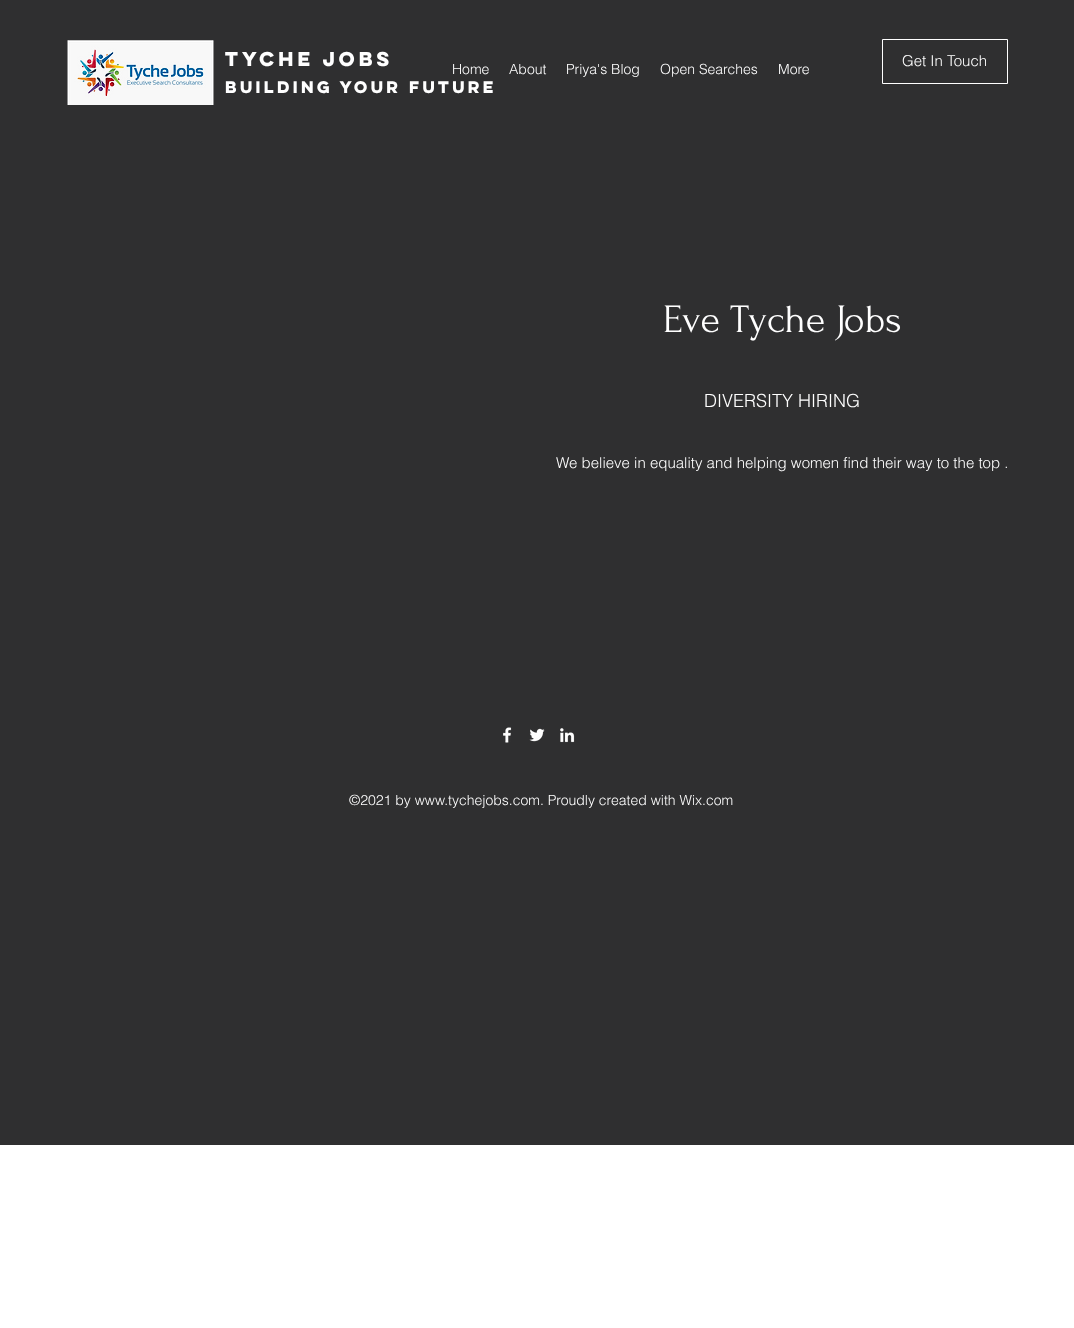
<svg xmlns="http://www.w3.org/2000/svg" width="1074" height="1328">
<style>
.a{font:bold 18px 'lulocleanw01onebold';fill:#fff}
.b{font:bold 15px 'lulocleanw01onebold';fill:#fff}
.c{font:300 15px helvetica;fill:#fff}
.d{font:300 14px helvetica;fill:#fff}
.e{font:40px Forum;fill:#fff}
.f{font:300 18px helvetica;fill:#fff}
</style>
<rect width="100%" height="100%" fill="#fff"/>
<path fill="#2f2f30" d="M0 0h1074v1145H0z"/>
<image href="1.png" x="67" y="40" width="147" height="65"/>
<path fill="none" stroke="#fff" d="M882.5 39.5h125v44H882.5z"/>
<image href="2.png" x="503" y="727" width="9" height="16"/>
<image href="3.png" x="529" y="728" width="16" height="14"/>
<image href="4.png" x="560" y="728" width="15" height="15"/>
<text class="a" x="225" y="66">TYCHE JOBS</text>
<text class="b" x="225" y="93">Building Your Future</text>
<text class="c" x="902" y="66">Get In Touch</text>
<text class="d" x="452" y="74">Home</text>
<text class="d" x="509" y="74">About</text>
<text class="d" x="566" y="74">Priya's Blog</text>
<text class="d" x="660" y="74">Open Searches</text>
<text class="d" x="778" y="74">More</text>
<text class="e" x="663" y="332">Eve Tyche Jobs</text>
<text class="f" x="704" y="407">DIVERSITY HIRING</text>
<text class="c" x="556" y="468">We believe in equality and helping women find their way to the top .</text>
<text class="d" x="349" y="805">©2021 by www.tychejobs.com. Proudly created with Wix.com</text>
</svg>
